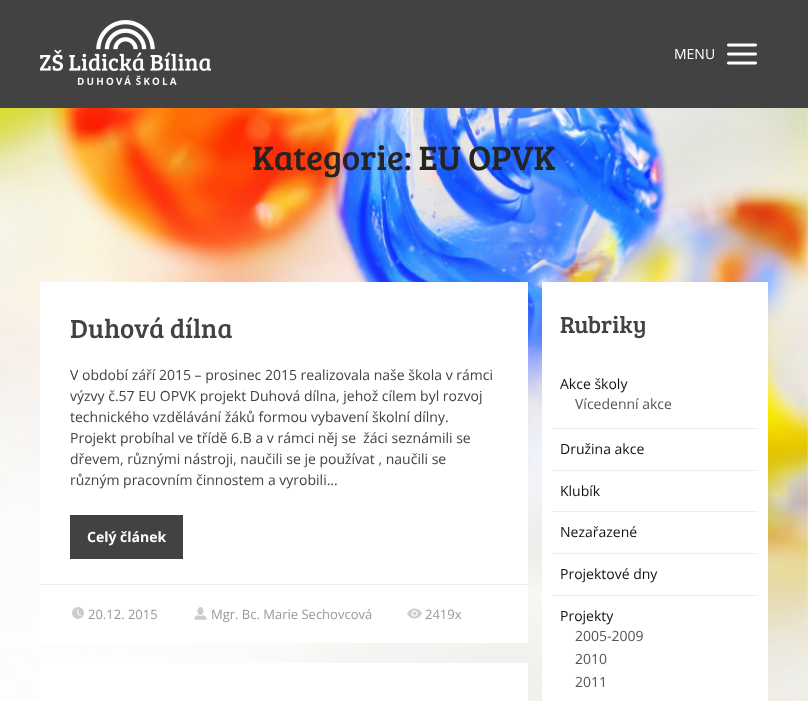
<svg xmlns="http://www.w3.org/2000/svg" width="808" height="701">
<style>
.a{font:14px Open Sans;fill:#fff}
.b{font:35px Bree Serif;fill:#242424}
.c{font:27px Bree Serif;fill:#434242}
.d{font:14px Open Sans;fill:#434242}
.e{font:bold 14px Open Sans;fill:#fff}
.f{font:13px Open Sans;fill:#999}
.g{font:24px Bree Serif;fill:#434242}
.h{font:14px Open Sans;fill:#111}
.i{font:14px Open Sans;fill:#555}
</style>
<rect width="100%" height="100%" fill="#ebebeb"/>
<path fill="#434242" d="M0 0h808v108H0z"/>
<image href="1.png" x="40" y="20" width="171" height="65"/>
<image href="2.png" x="727" y="43" width="30" height="22"/>
<image href="3.png" x="0" y="108" width="808" height="593"/>
<path fill="#fff" d="M40 282h488v361H40z"/>
<path fill="#434242" d="M70 515h113v44H70z"/>
<path fill="#eee" d="M40 584h488v1H40z"/>
<image href="4.png" x="72" y="607" width="12" height="12"/>
<image href="5.png" x="194" y="607" width="13" height="13"/>
<image href="6.png" x="407" y="608" width="15" height="11"/>
<path fill="#fff" d="M40 663h488v38H40z"/>
<path fill="#fff" d="M542 282h226v419H542z"/>
<path fill="#eee" d="M552 428h206v1H552z"/>
<path fill="#eee" d="M552 470h206v1H552z"/>
<path fill="#eee" d="M552 511h206v1H552z"/>
<path fill="#eee" d="M552 553h206v1H552z"/>
<path fill="#eee" d="M552 595h206v1H552z"/>
<text class="a" x="674" y="59">MENU</text>
<text class="b" x="252" y="170">Kategorie: EU OPVK</text>
<text class="c" x="70" y="338">Duhová dílna</text>
<text class="d" x="70" y="380">V období září 2015 – prosinec 2015 realizovala naše škola v rámci</text>
<text class="d" x="70" y="401">výzvy č.57 EU OPVK projekt Duhová dílna, jehož cílem byl rozvoj</text>
<text class="d" x="70" y="422">technického vzdělávání žáků formou vybavení školní dílny.</text>
<text class="d" xml:space="preserve" x="70" y="443">Projekt probíhal ve třídě 6.B a v rámci něj se  žáci seznámili se</text>
<text class="d" x="70" y="464">dřevem, různými nástroji, naučili se je používat , naučili se</text>
<text class="d" x="70" y="485">různým pracovním činnostem a vyrobili...</text>
<text class="e" x="87" y="542">Celý článek</text>
<text class="f" x="88" y="619">20.12. 2015</text>
<text class="f" x="211" y="619">Mgr. Bc. Marie Sechovcová</text>
<text class="f" x="425" y="619">2419x</text>
<text class="g" x="560" y="333">Rubriky</text>
<text class="h" x="560" y="389">Akce školy</text>
<text class="i" x="575" y="409">Vícedenní akce</text>
<text class="h" x="560" y="454">Družina akce</text>
<text class="h" x="560" y="496">Klubík</text>
<text class="h" x="560" y="537">Nezařazené</text>
<text class="h" x="560" y="579">Projektové dny</text>
<text class="h" x="560" y="621">Projekty</text>
<text class="i" x="575" y="641">2005-2009</text>
<text class="i" x="575" y="664">2010</text>
<text class="i" x="575" y="687">2011</text>
</svg>
